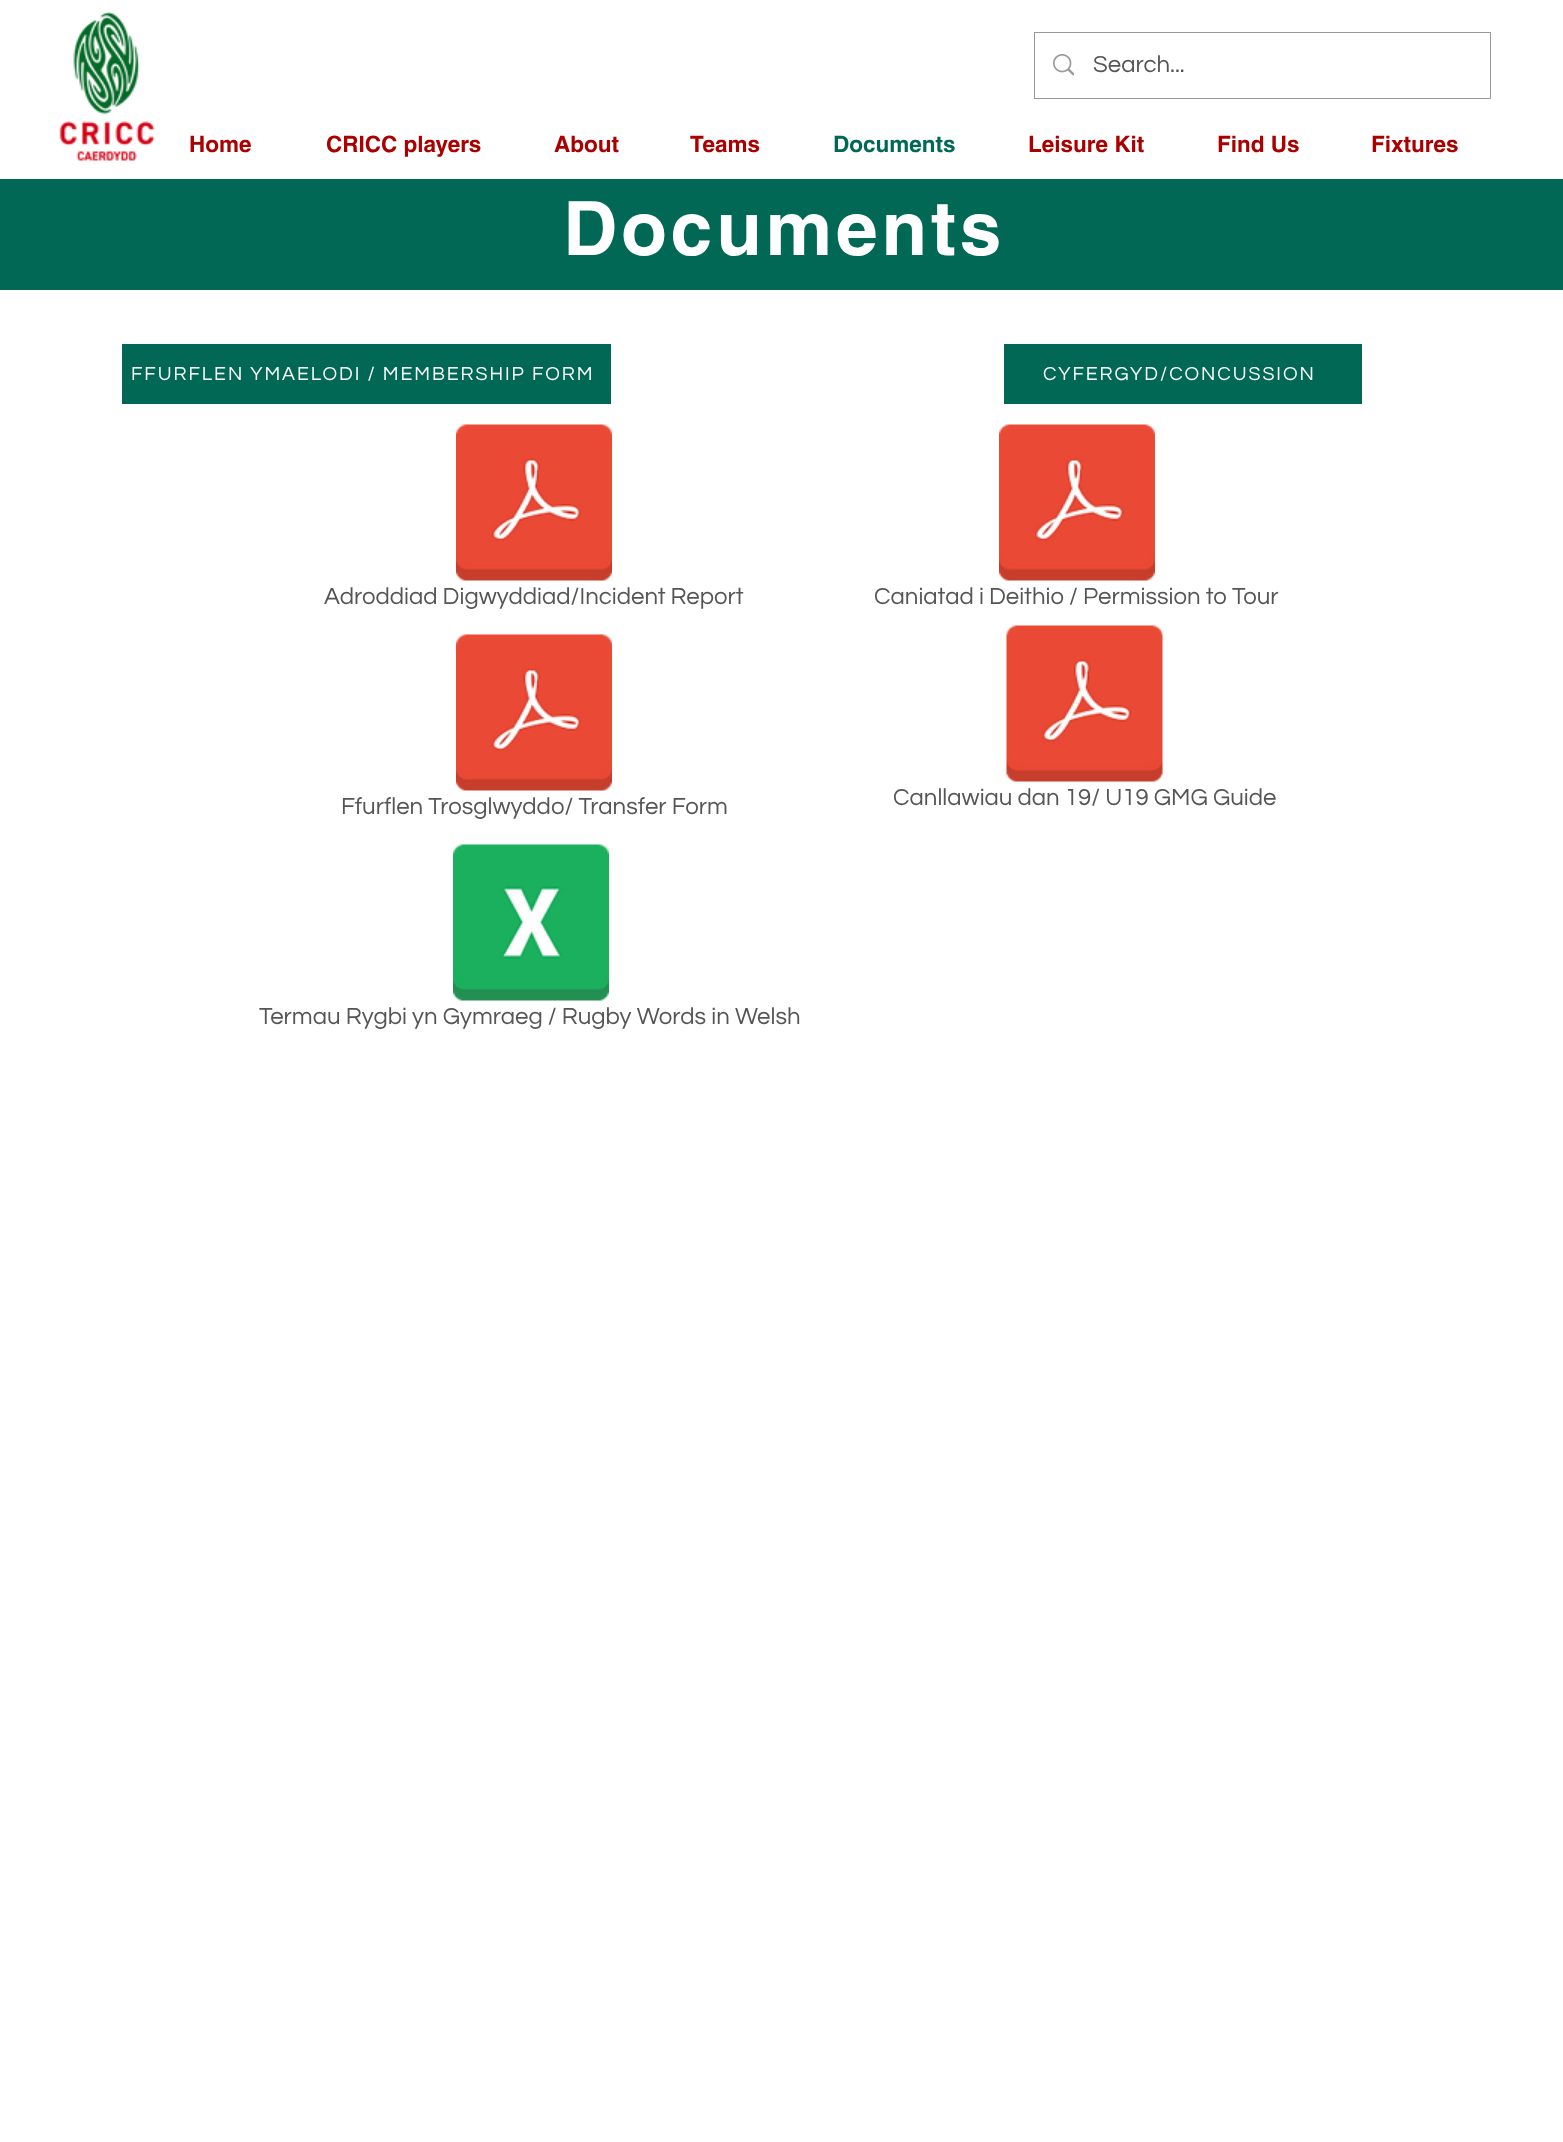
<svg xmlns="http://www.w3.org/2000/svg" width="1563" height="2142">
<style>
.a{font:24px Questrial;fill:#555}
.b{font:bold 22.5px helvetica;fill:#a00}
.c{font:bold 22.5px helvetica;fill:#016855}
.d{font:bold 75px helvetica;letter-spacing:3.75px;fill:#fff}
.e{font:19.5px Questrial;letter-spacing:1.95px;fill:#fff}
</style>
<rect width="100%" height="100%" fill="#fff"/>
<image href="1.png" x="59" y="11" width="96" height="150"/>
<path fill="none" stroke="#999" stroke-width="2" d="M1035 33h455v65H1035z"/>
<path fill="#fff" d="M1035 33h455v65H1035z"/>
<image href="2.png" x="1053" y="54" width="21" height="22"/>
<path fill="#016855" d="M0 179h1563v111H0z"/>
<path fill="#016855" d="M122 344h489v60H122z"/>
<path fill="#016855" d="M1004 344h358v60H1004z"/>
<image href="3.png" x="456" y="424" width="156" height="157"/>
<image href="4.png" x="999" y="424" width="156" height="157"/>
<image href="3.png" x="456" y="634" width="156" height="157"/>
<image href="5.png" x="1006" y="625" width="157" height="157"/>
<image href="6.png" x="453" y="844" width="156" height="157"/>
<text class="a" x="1093" y="72">Search...</text>
<text class="b" x="189" y="152">Home</text>
<text class="b" x="326" y="152">CRICC players</text>
<text class="b" x="554" y="152">About</text>
<text class="b" x="690" y="152">Teams</text>
<text class="c" x="833" y="152">Documents</text>
<text class="b" x="1028" y="152">Leisure Kit</text>
<text class="b" x="1217" y="152">Find Us</text>
<text class="b" x="1371" y="152">Fixtures</text>
<text class="d" x="563" y="255">Documents</text>
<text class="e" x="131" y="380">FFURFLEN YMAELODI / MEMBERSHIP FORM</text>
<text class="e" x="1043" y="380">CYFERGYD/CONCUSSION</text>
<text class="a" x="324" y="604">Adroddiad Digwyddiad/Incident Report</text>
<text class="a" x="874" y="604">Caniatad i Deithio / Permission to Tour</text>
<text class="a" x="341" y="814">Ffurflen Trosglwyddo/ Transfer Form</text>
<text class="a" x="893" y="805">Canllawiau dan 19/ U19 GMG Guide</text>
<text class="a" x="259" y="1024">Termau Rygbi yn Gymraeg / Rugby Words in Welsh</text>
</svg>
